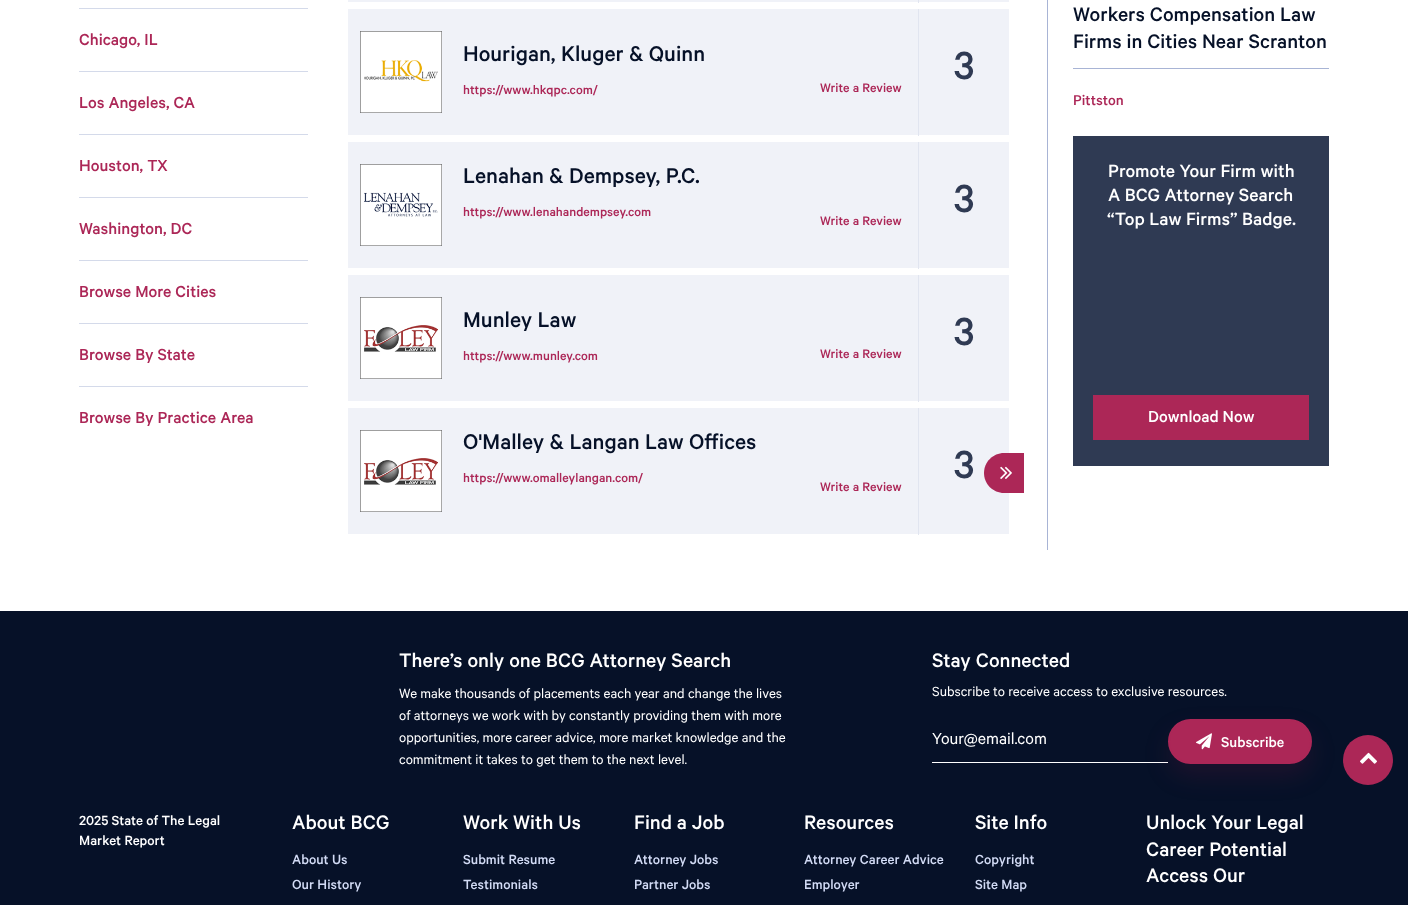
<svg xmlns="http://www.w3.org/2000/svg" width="1408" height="905">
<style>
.a{font:500 18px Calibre;fill:#ac2757}
.b{font:500 24px Calibre;fill:#061128}
.c{font:500 14px Calibre;fill:#ac2757}
.d{font:500 44px Calibre;fill:#2f3a53}
.e{font:500 22px Calibre;fill:#061128}
.f{font:500 16px Calibre;fill:#ac2757}
.g{font:500 20px Calibre;fill:#fff}
.h{font:500 18px Calibre;fill:#fff}
.i{font:500 22px Calibre;fill:#fff}
.j{font:15px Calibre;fill:#fff}
.k{font:18px Calibre;fill:#fff}
.l{font:500 16px Calibre;fill:#fff}
.m{font:500 15px Calibre;fill:#fff}
.n{font:500 15px Calibre;fill:#d2dbf5}
</style>
<rect width="100%" height="100%" fill="#fff"/>
<path fill="#d4daea" d="M79 8h229v1H79z"/>
<path fill="#d4daea" d="M79 71h229v1H79z"/>
<path fill="#d4daea" d="M79 134h229v1H79z"/>
<path fill="#d4daea" d="M79 197h229v1H79z"/>
<path fill="#d4daea" d="M79 260h229v1H79z"/>
<path fill="#d4daea" d="M79 323h229v1H79z"/>
<path fill="#d4daea" d="M79 386h229v1H79z"/>
<path fill="#f0f2f8" d="M348 0h661v2H348z"/>
<path fill="#e1e5f0" d="M918 0h1v3H918z"/>
<path fill="#f0f2f8" d="M348 9h570v126H348z"/>
<image href="1.png" x="360" y="31" width="82" height="82"/>
<path fill="#f0f2f8" d="M919 9h90v126H919z"/>
<path fill="#e1e5f0" d="M918 9h1v127H918z"/>
<path fill="#f0f2f8" d="M348 142h570v126H348z"/>
<image href="2.png" x="360" y="164" width="82" height="82"/>
<path fill="#f0f2f8" d="M919 142h90v126H919z"/>
<path fill="#e1e5f0" d="M918 142h1v127H918z"/>
<path fill="#f0f2f8" d="M348 275h570v126H348z"/>
<image href="3.png" x="360" y="297" width="82" height="82"/>
<path fill="#f0f2f8" d="M919 275h90v126H919z"/>
<path fill="#e1e5f0" d="M918 275h1v127H918z"/>
<path fill="#f0f2f8" d="M348 408h570v126H348z"/>
<image href="3.png" x="360" y="430" width="82" height="82"/>
<path fill="#f0f2f8" d="M919 408h90v126H919z"/>
<path fill="#e1e5f0" d="M918 408h1v127H918z"/>
<path fill="#a8b4d5" d="M1047 0h1v550H1047z"/>
<path fill="#a8b4d5" d="M1073 68h256v1H1073z"/>
<path fill="#2f3a53" d="M1073 136h256v330H1073z"/>
<path fill="#ac2757" stroke="#ac2757" stroke-width="2" d="M1094 396h214v43H1094z"/>
<path fill="#ac2757" d="M1004 453h20v40h-20c-11 0-20-9-20-20c0-11 9-20 20-20z"/>
<image href="4.png" x="1000" y="466" width="12" height="13"/>
<path fill="#061128" d="M0 611h1408v294H0z"/>
<path fill="#fff" d="M932 762h236v1H932z"/>
<rect fill="#90164229" filter="blur(12px)" x="1168" y="731" width="144" height="45" rx="22.5"/>
<rect fill="#ac2757" stroke="#ac2757" stroke-width="2" x="1169" y="720" width="142" height="43" rx="21.5"/>
<image href="5.png" x="1196" y="733" width="16" height="17"/>
<circle fill="#ac2757" cx="1368" cy="760" r="25"/>
<image href="6.png" x="1360" y="752" width="17" height="12"/>
<text class="a" x="79" y="45">Chicago, IL</text>
<text class="a" x="79" y="108">Los Angeles, CA</text>
<text class="a" x="79" y="171">Houston, TX</text>
<text class="a" x="79" y="234">Washington, DC</text>
<text class="a" x="79" y="297">Browse More Cities</text>
<text class="a" x="79" y="360">Browse By State</text>
<text class="a" x="79" y="423">Browse By Practice Area</text>
<text class="b" x="463" y="61">Hourigan, Kluger &amp; Quinn</text>
<text class="c" x="463" y="94">https://www.hkqpc.com/</text>
<text class="c" x="820" y="92">Write a Review</text>
<text class="d" x="954" y="79">3</text>
<text class="b" x="463" y="183">Lenahan &amp; Dempsey, P.C.</text>
<text class="c" x="463" y="216">https://www.lenahandempsey.com</text>
<text class="c" x="820" y="225">Write a Review</text>
<text class="d" x="954" y="212">3</text>
<text class="b" x="463" y="327">Munley Law</text>
<text class="c" x="463" y="360">https://www.munley.com</text>
<text class="c" x="820" y="358">Write a Review</text>
<text class="d" x="954" y="345">3</text>
<text class="b" x="463" y="449">O'Malley &amp; Langan Law Offices</text>
<text class="c" x="463" y="482">https://www.omalleylangan.com/</text>
<text class="c" x="820" y="491">Write a Review</text>
<text class="d" x="954" y="478">3</text>
<text class="e" x="1073" y="21">Workers Compensation Law</text>
<text class="e" x="1073" y="48">Firms in Cities Near Scranton</text>
<text class="f" x="1073" y="105">Pittston</text>
<text class="g" x="1108" y="177">Promote Your Firm with</text>
<text class="g" x="1108" y="201">A BCG Attorney Search</text>
<text class="g" x="1107" y="225">“Top Law Firms” Badge.</text>
<text class="h" x="1148" y="422">Download Now</text>
<text class="i" x="399" y="667">There’s only one BCG Attorney Search</text>
<text class="j" x="399" y="698">We make thousands of placements each year and change the lives</text>
<text class="j" x="399" y="720">of attorneys we work with by constantly providing them with more</text>
<text class="j" x="399" y="742">opportunities, more career advice, more market knowledge and the</text>
<text class="j" x="399" y="764">commitment it takes to get them to the next level.</text>
<text class="i" x="932" y="667">Stay Connected</text>
<text class="j" x="932" y="696">Subscribe to receive access to exclusive resources.</text>
<text class="k" x="932" y="744">Your@email.com</text>
<text class="l" x="1221" y="747">Subscribe</text>
<text class="m" x="79" y="825">2025 State of The Legal</text>
<text class="m" x="79" y="845">Market Report</text>
<text class="i" x="292" y="829">About BCG</text>
<text class="n" x="292" y="864">About Us</text>
<text class="n" x="292" y="889">Our History</text>
<text class="i" x="463" y="829">Work With Us</text>
<text class="n" x="463" y="864">Submit Resume</text>
<text class="n" x="463" y="889">Testimonials</text>
<text class="i" x="634" y="829">Find a Job</text>
<text class="n" x="634" y="864">Attorney Jobs</text>
<text class="n" x="634" y="889">Partner Jobs</text>
<text class="i" x="804" y="829">Resources</text>
<text class="n" x="804" y="864">Attorney Career Advice</text>
<text class="n" x="804" y="889">Employer</text>
<text class="i" x="975" y="829">Site Info</text>
<text class="n" x="975" y="864">Copyright</text>
<text class="n" x="975" y="889">Site Map</text>
<text class="i" x="1146" y="829">Unlock Your Legal</text>
<text class="i" x="1146" y="856">Career Potential</text>
<text class="i" x="1146" y="882">Access Our</text>
</svg>
